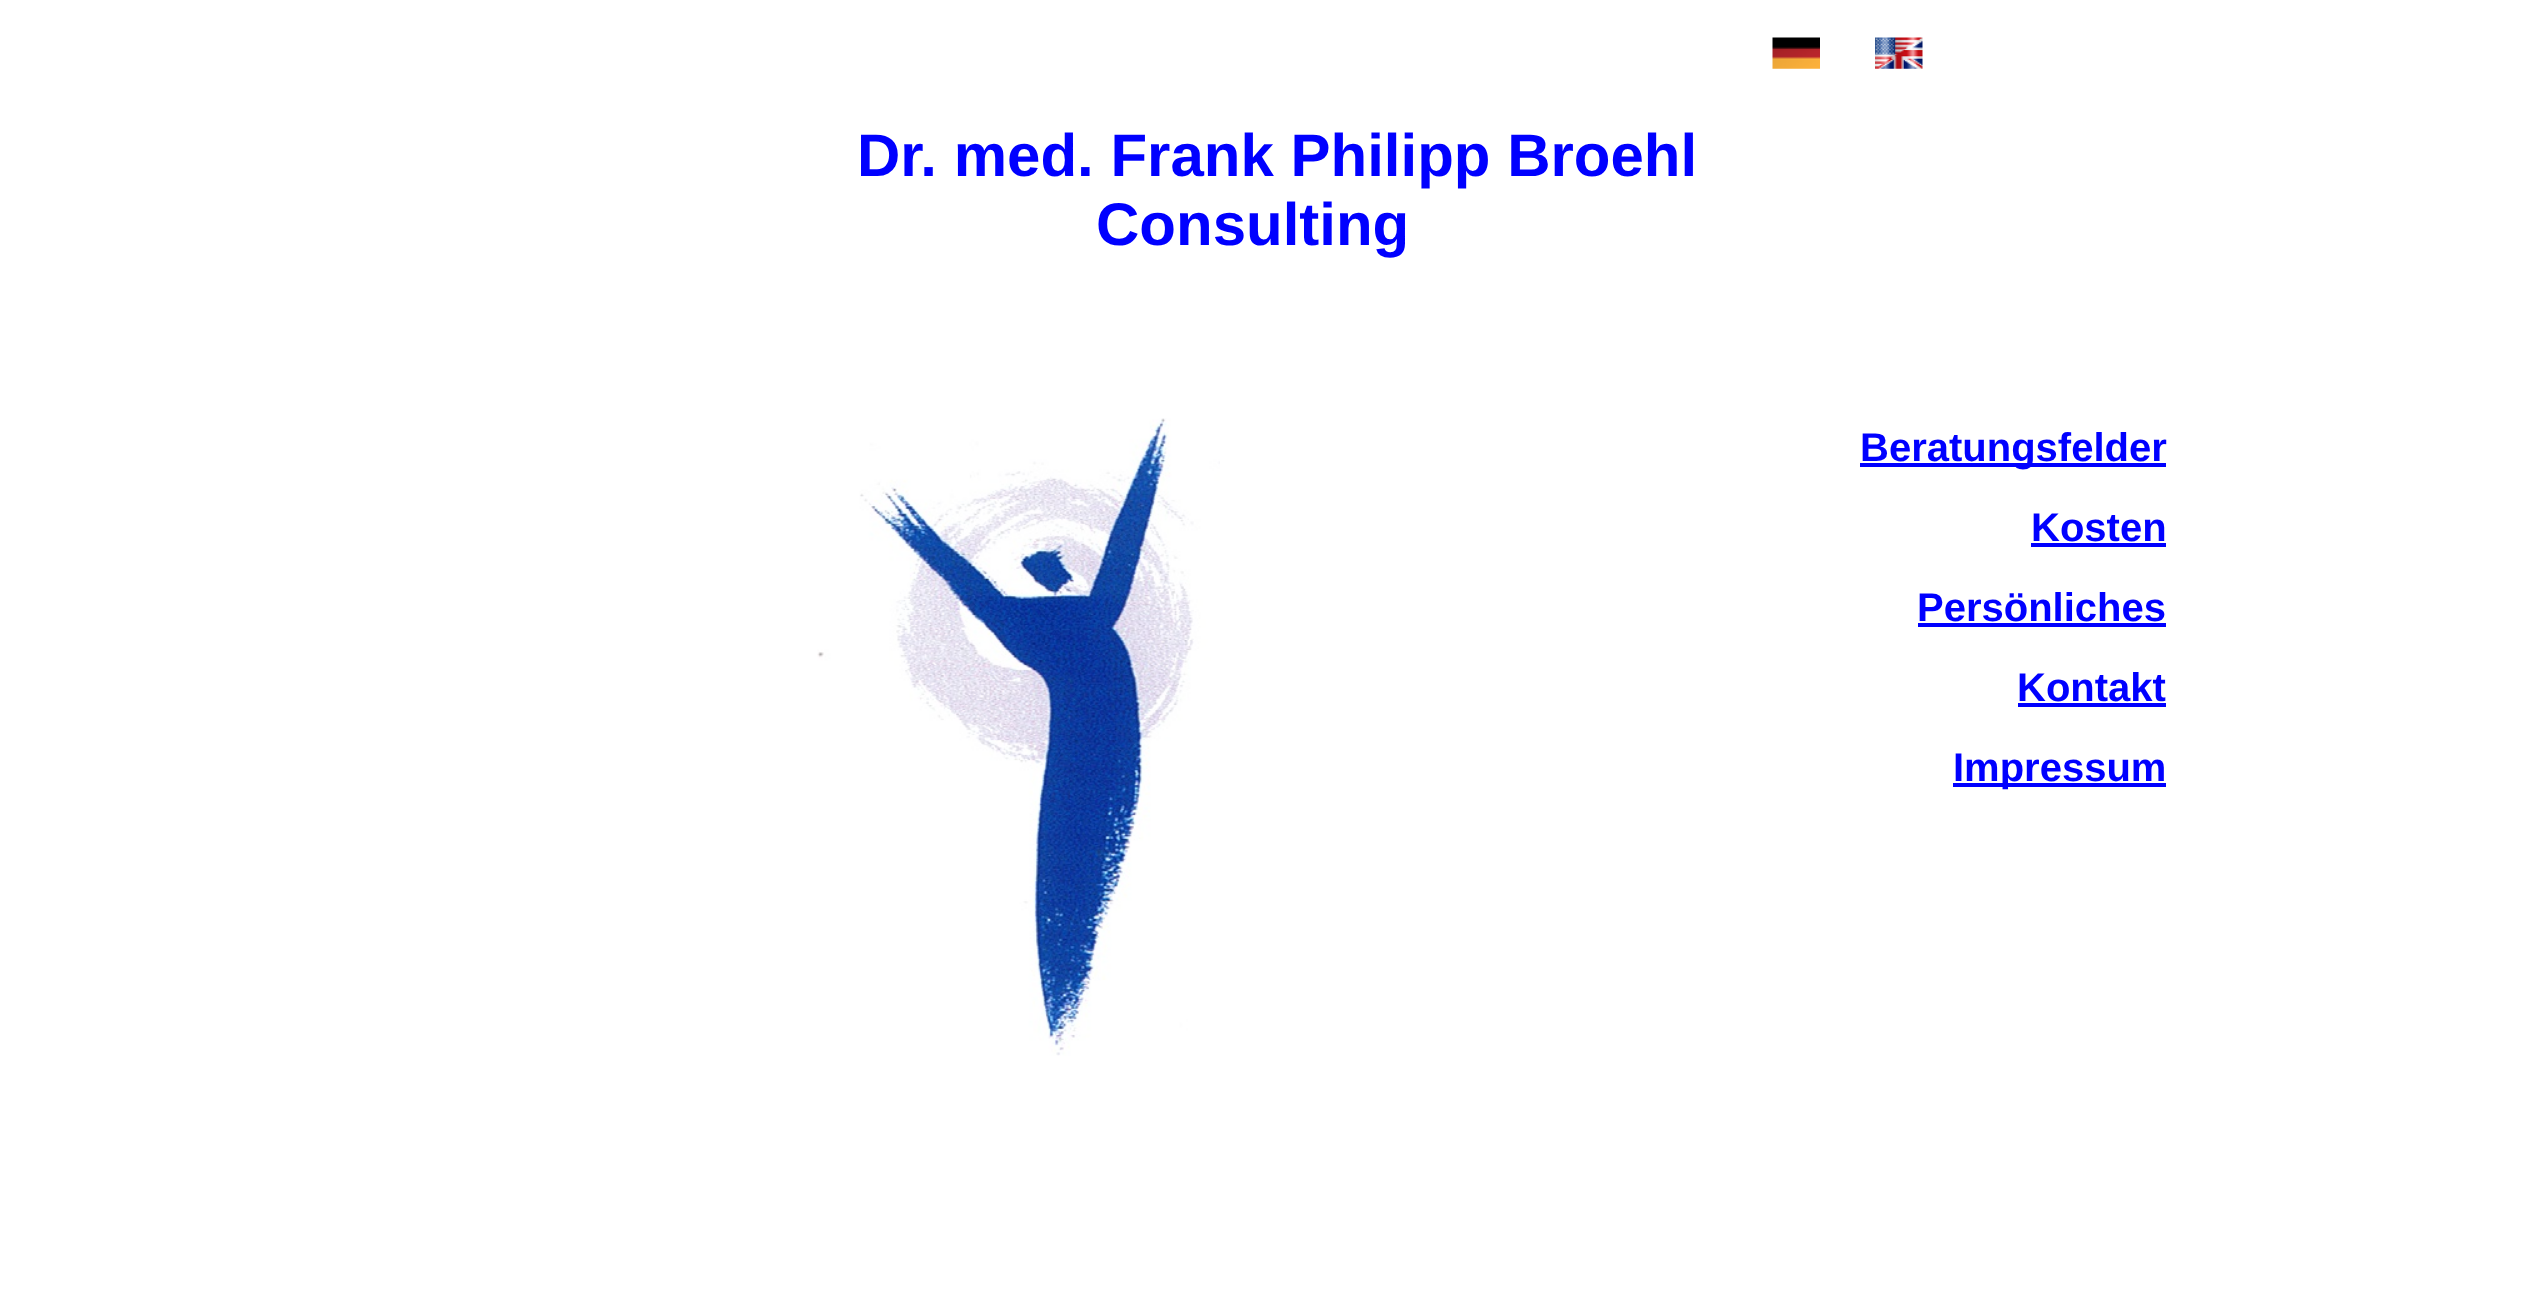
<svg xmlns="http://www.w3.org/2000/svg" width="2530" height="1290">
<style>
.a{font:bold 60px Liberation Sans;fill:#00f}
.b{font:bold 40px Liberation Sans;fill:#00f}
</style>
<rect width="100%" height="100%" fill="#fff"/>
<image href="1.png" x="1772" y="37" width="48" height="32"/>
<image href="2.png" x="1875" y="37" width="48" height="32"/>
<image href="3.png" x="817" y="418" width="403" height="638"/>
<path fill="#00f" d="M1860 463h306v4H1860z"/>
<path fill="#00f" d="M2031 543h135v4H2031z"/>
<path fill="#00f" d="M1918 623h248v4H1918z"/>
<path fill="#00f" d="M2018 703h148v4H2018z"/>
<path fill="#00f" d="M1953 783h213v4H1953z"/>
<text class="a" x="857" y="176">Dr. med. Frank Philipp Broehl</text>
<text class="a" x="1096" y="245">Consulting</text>
<text class="b" x="1860" y="461">Beratungsfelder</text>
<text class="b" x="2031" y="541">Kosten</text>
<text class="b" x="1917" y="621">Persönliches</text>
<text class="b" x="2017" y="701">Kontakt</text>
<text class="b" x="1953" y="781">Impressum</text>
</svg>
